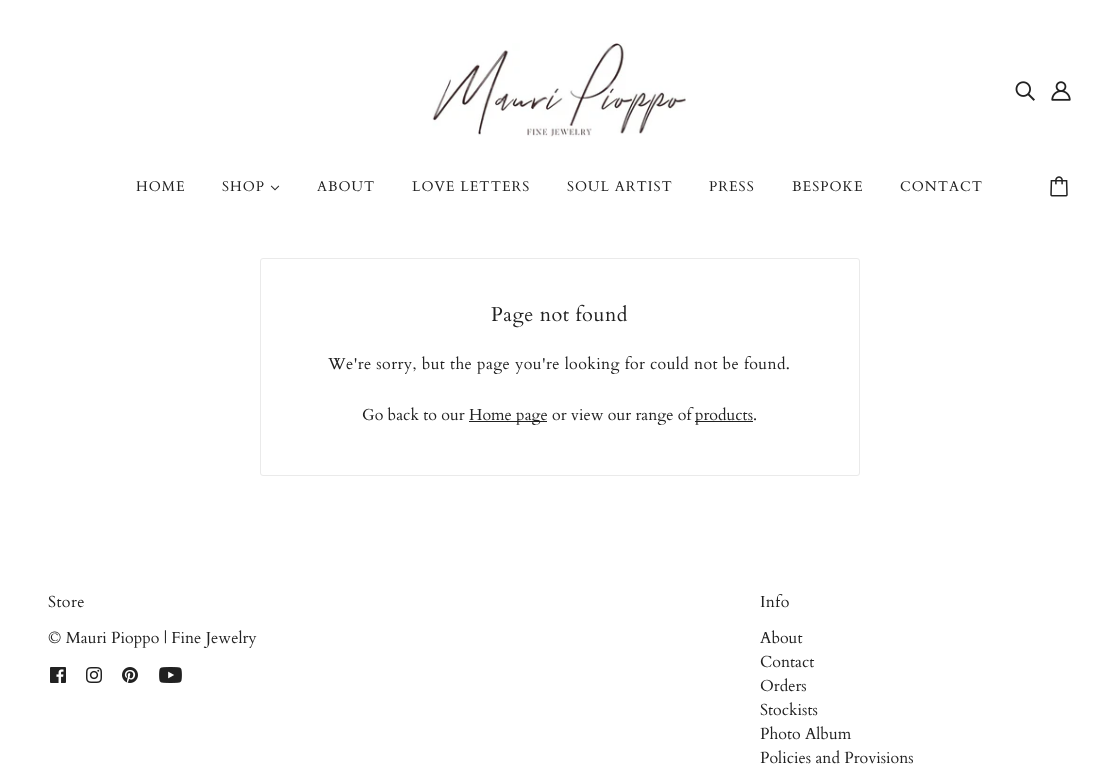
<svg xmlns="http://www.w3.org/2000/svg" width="1119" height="764">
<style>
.a{font:14px Cardo;letter-spacing:1px;fill:#212121}
.b{font:20px Cardo;letter-spacing:0.5px;fill:#212121}
.c{font:16px Cardo;letter-spacing:0.4px;fill:#212121}
.d{font:16px Cardo;fill:#212121}
</style>
<rect width="100%" height="100%" fill="#fff"/>
<image href="1.png" x="432" y="43" width="254" height="94"/>
<image href="2.png" x="1015" y="81" width="20" height="20"/>
<image href="3.png" x="1051" y="81" width="20" height="20"/>
<image href="4.png" x="270" y="185" width="10" height="6"/>
<image href="5.png" x="1050" y="176" width="18" height="21"/>
<rect fill="none" stroke="#eaeaea" x="260.5" y="258.5" width="599" height="217" rx="2.5"/>
<path fill="#212121" d="M469 421h78v1H469z"/>
<path fill="#212121" d="M695 421h58v1H695z"/>
<image href="6.png" x="50" y="667" width="16" height="16"/>
<image href="7.png" x="86" y="667" width="16" height="16"/>
<image href="8.png" x="122" y="667" width="16" height="16"/>
<image href="9.png" x="159" y="667" width="23" height="16"/>
<text class="a" x="136" y="191">HOME</text>
<text class="a" x="222" y="191">SHOP</text>
<text class="a" x="317" y="191">ABOUT</text>
<text class="a" x="412" y="191">LOVE LETTERS</text>
<text class="a" x="567" y="191">SOUL ARTIST</text>
<text class="a" x="709" y="191">PRESS</text>
<text class="a" x="792" y="191">BESPOKE</text>
<text class="a" x="900" y="191">CONTACT</text>
<text class="b" x="491" y="321">Page not found</text>
<text class="c" x="328" y="369">We're sorry, but the page you're looking for could not be found.</text>
<text class="d" x="362" y="420">Go back to our</text>
<text class="d" x="469" y="420">Home page or view our range of</text>
<text class="d" x="695" y="420">products.</text>
<text class="c" x="48" y="607">Store</text>
<text class="d" x="48" y="643">© Mauri Pioppo | Fine Jewelry</text>
<text class="c" x="760" y="607">Info</text>
<text class="d" x="760" y="643">About</text>
<text class="d" x="760" y="667">Contact</text>
<text class="d" x="760" y="691">Orders</text>
<text class="d" x="760" y="715">Stockists</text>
<text class="d" x="760" y="739">Photo Album</text>
<text class="d" x="760" y="763">Policies and Provisions</text>
</svg>
